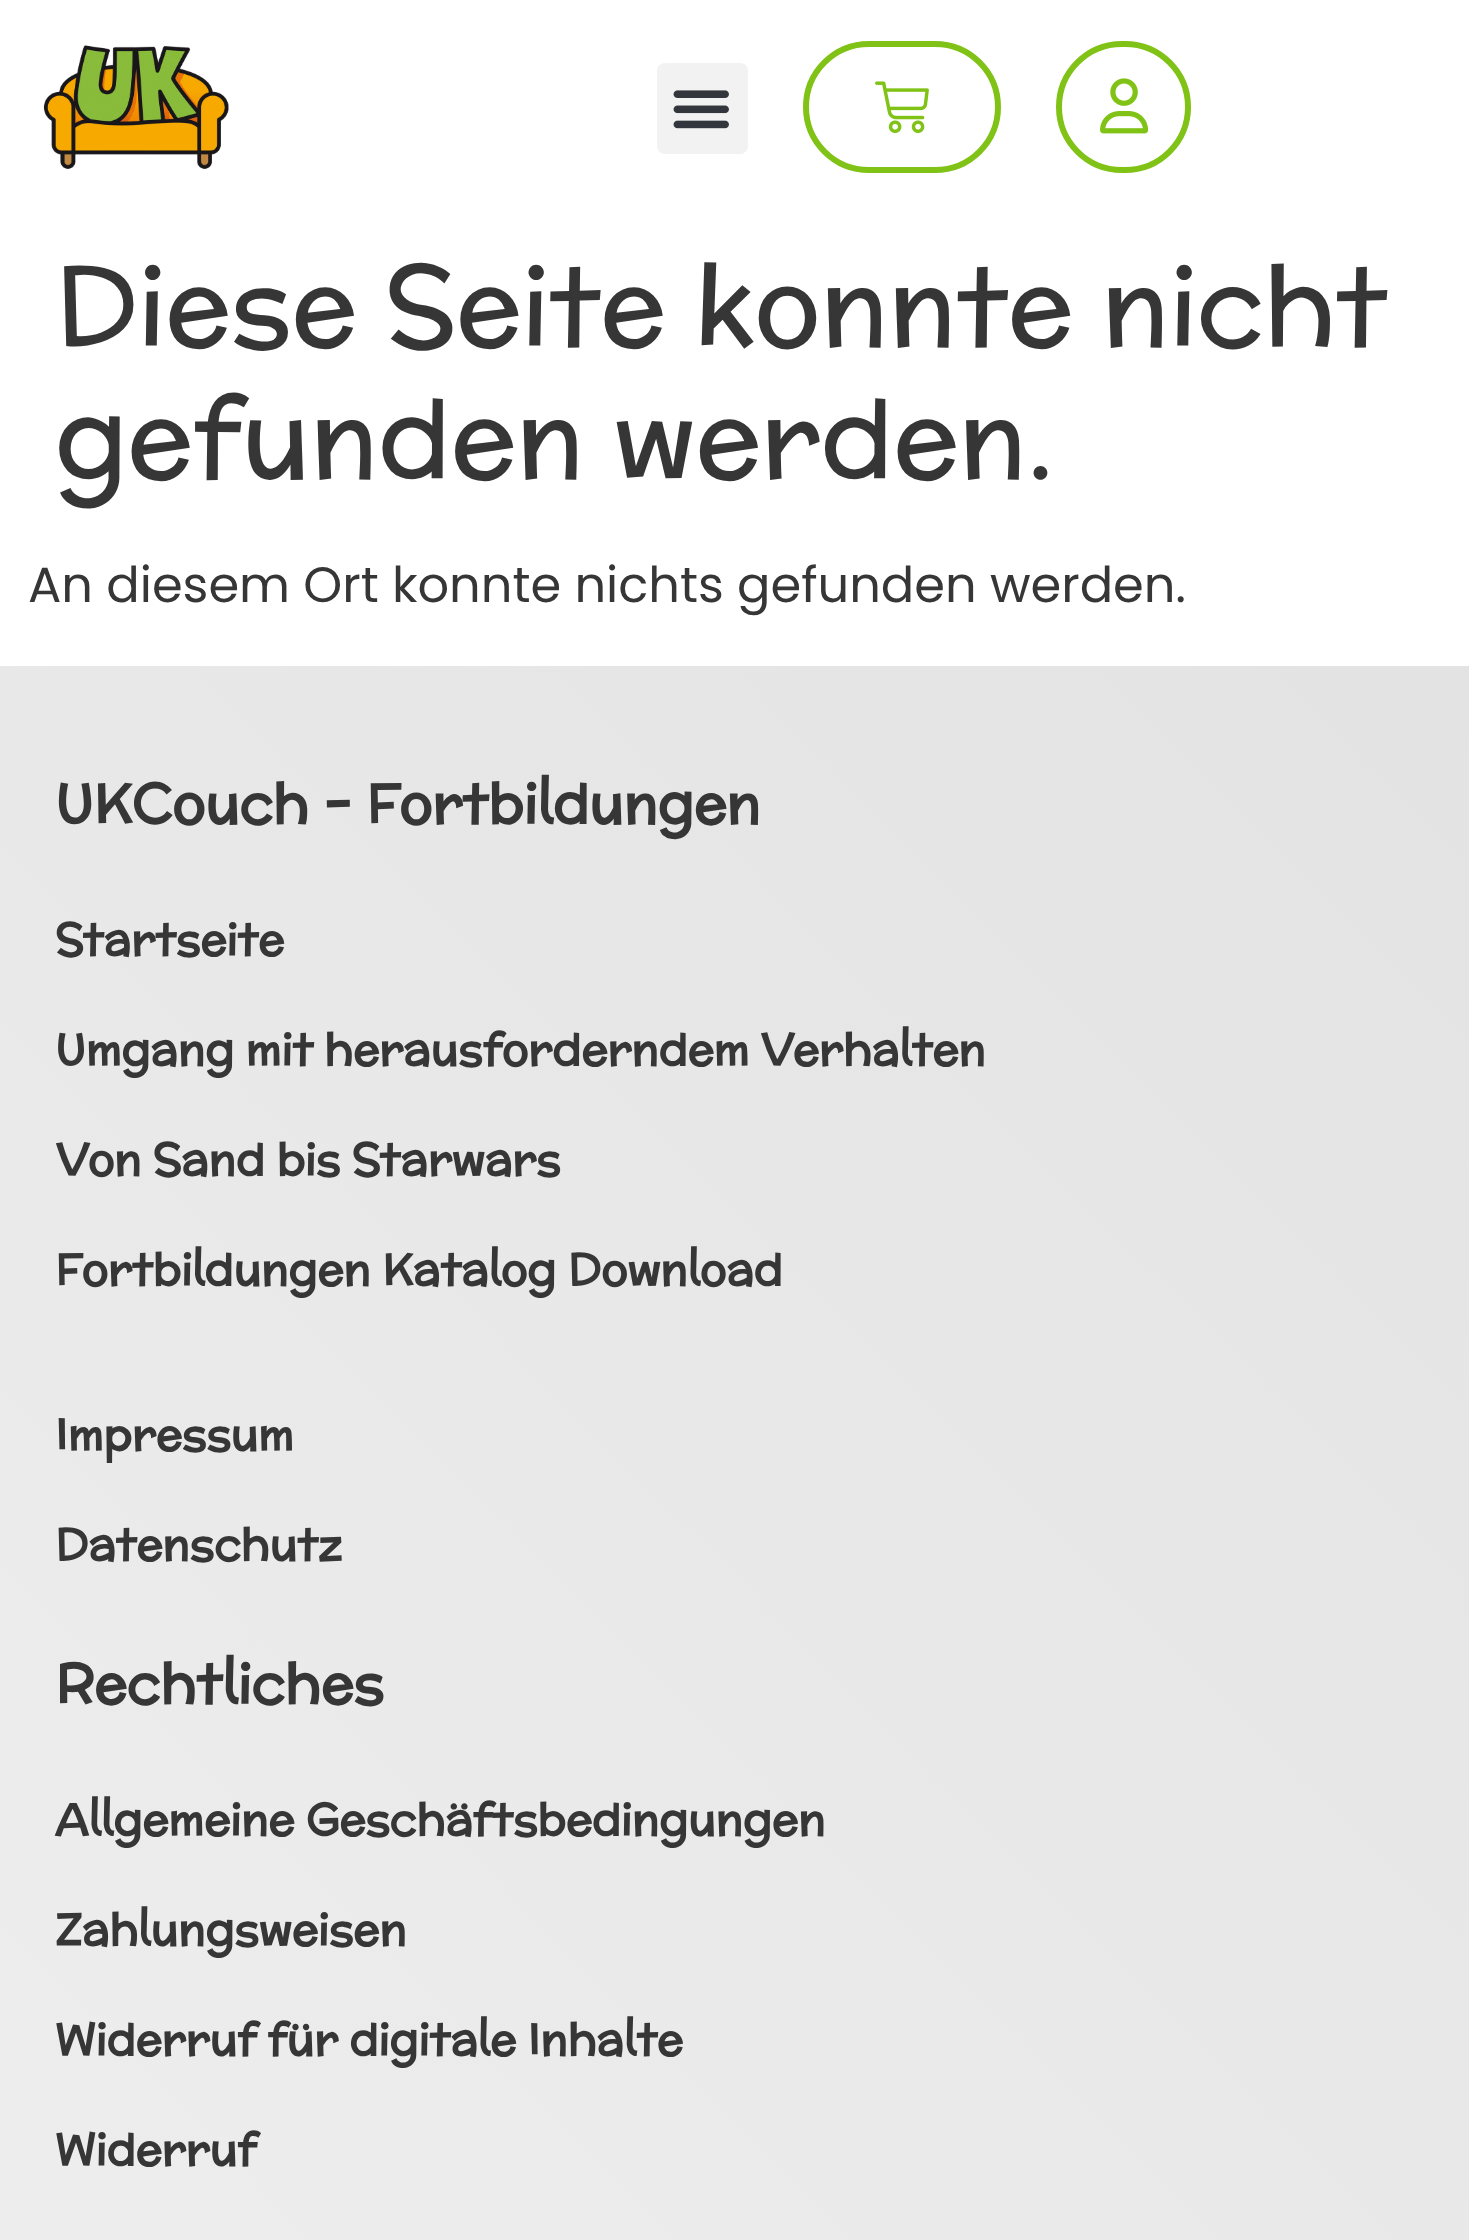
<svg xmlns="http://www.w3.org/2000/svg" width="1469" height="2240">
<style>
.a{font:110px McLaren;fill:#363636}
.b{font:49.5px Poppins;fill:#363636}
.c{font:bold 55px McLaren;fill:#363636}
.d{font:bold 44px McLaren;fill:#363636}
</style>
<defs>
<linearGradient id="g1" gradientUnits="userSpaceOnUse" x1="-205" y1="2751" x2="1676" y2="870"><stop offset="0" stop-color="#f0f0f1"/><stop offset="1" stop-color="#e4e3e4"/></linearGradient>
</defs>
<rect width="100%" height="100%" fill="#fff"/>
<image href="1.png" x="43" y="45" width="186" height="124"/>
<rect fill="#f2f2f2" x="657" y="63" width="91" height="91" rx="8"/>
<image href="2.png" x="673" y="90" width="56" height="39"/>
<rect fill="none" stroke="#80c215" stroke-width="6" x="806" y="44" width="192" height="126" rx="63"/>
<image href="3.png" x="875" y="81" width="54" height="52"/>
<rect fill="none" stroke="#80c215" stroke-width="6" x="1059" y="44" width="129" height="126" rx="63"/>
<image href="4.png" x="1100" y="78" width="49" height="56"/>
<path fill="url(#g1)" d="M0 666h1469v1574H0z"/>
<text class="a" x="55" y="344" word-spacing="-0.5">Diese Seite konnte nicht</text>
<text class="a" x="55" y="476">gefunden werden.</text>
<text class="b" x="28" y="602">An diesem Ort konnte nichts gefunden werden.</text>
<text class="c" x="55" y="823">UKCouch - Fortbildungen</text>
<text class="d" x="55" y="955">Startseite</text>
<text class="d" x="55" y="1065">Umgang mit herausforderndem Verhalten</text>
<text class="d" x="55" y="1175">Von Sand bis Starwars</text>
<text class="d" x="55" y="1285">Fortbildungen Katalog Download</text>
<text class="d" x="55" y="1450">Impressum</text>
<text class="d" x="55" y="1560">Datenschutz</text>
<text class="c" x="55" y="1703">Rechtliches</text>
<text class="d" x="55" y="1835">Allgemeine Geschäftsbedingungen</text>
<text class="d" x="55" y="1945">Zahlungsweisen</text>
<text class="d" x="55" y="2055">Widerruf für digitale Inhalte</text>
<text class="d" x="55" y="2165">Widerruf</text>
</svg>
